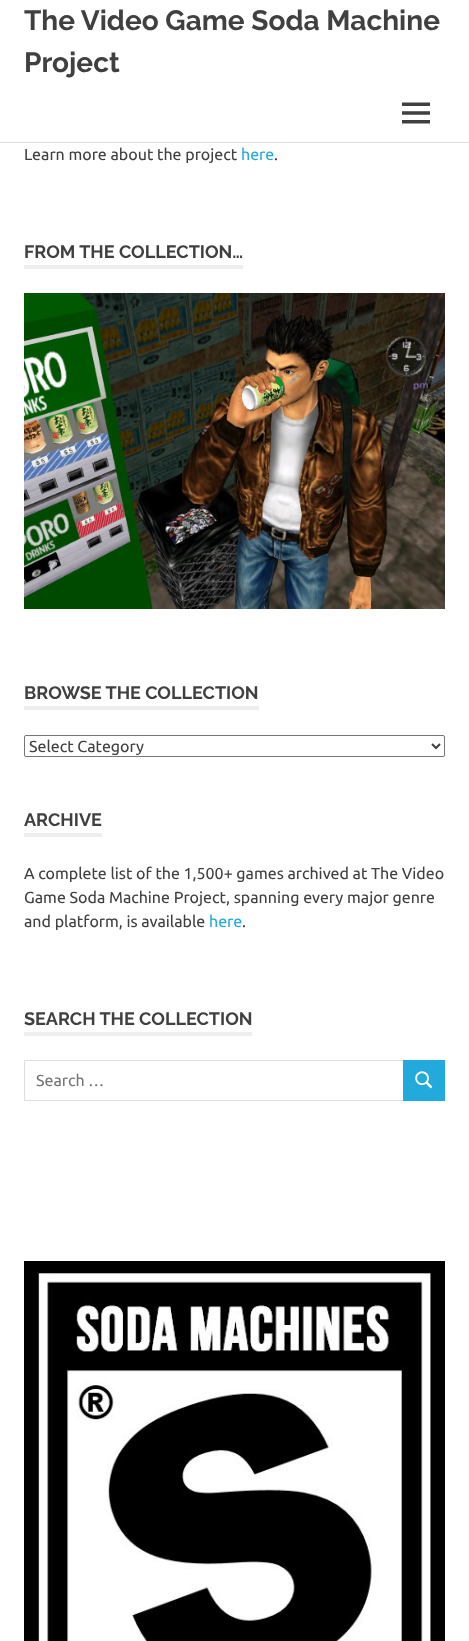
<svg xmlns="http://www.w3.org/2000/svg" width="469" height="1641">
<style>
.a{font:100 28px Raleway;fill:#404040}
.b{font:16px Ubuntu;fill:#404040}
.c{font:16px Ubuntu;fill:#2ad}
.d{font:100 18px Raleway;fill:#404040}
.e{font:16px Ubuntu;fill:#757575}
</style>
<rect width="100%" height="100%" fill="#fff"/>
<path fill="#e0e0e0" d="M0 142h469v1H0z"/>
<image href="1.png" x="402" y="102" width="28" height="22"/>
<path fill="#eee" d="M24 265h219v4H24z"/>
<image href="2.png" x="24" y="293" width="421" height="316"/>
<path fill="#eee" d="M24 706h235v4H24z"/>
<rect fill="none" stroke="#767676" x="24.5" y="735.5" width="420" height="21" rx="1.5"/>
<path fill="none" stroke="#404040" stroke-width="2" d="M432 744l4 4l4-4"/>
<path fill="#eee" d="M24 833h78v4H24z"/>
<path fill="#eee" d="M24 1032h228v4H24z"/>
<path fill="none" stroke="#ddd" d="M24.5 1060.5h379v40H24.5z"/>
<path fill="#2ad" d="M403 1060h42v41H403z"/>
<image href="3.png" x="415" y="1071" width="18" height="18"/>
<image href="4.png" x="24" y="1261" width="421" height="380"/>
<text class="a" x="24" y="30">The Video Game Soda Machine</text>
<text class="a" x="24" y="72">Project</text>
<text class="b" x="24" y="160">Learn more about the project</text>
<text class="c" x="241" y="160">here</text>
<text class="b" x="274" y="160">.</text>
<text class="d" x="24" y="258">FROM THE COLLECTION…</text>
<text class="d" x="24" y="699">BROWSE THE COLLECTION</text>
<text class="b" x="29" y="752">Select Category</text>
<text class="d" x="24" y="826">ARCHIVE</text>
<text class="b" x="24" y="879">A complete list of the 1,500+ games archived at The Video</text>
<text class="b" x="24" y="903">Game Soda Machine Project, spanning every major genre</text>
<text class="b" x="24" y="927">and platform, is available</text>
<text class="c" x="209" y="927">here</text>
<text class="b" x="242" y="927">.</text>
<text class="d" x="24" y="1025">SEARCH THE COLLECTION</text>
<text class="e" x="36" y="1086">Search …</text>
</svg>
